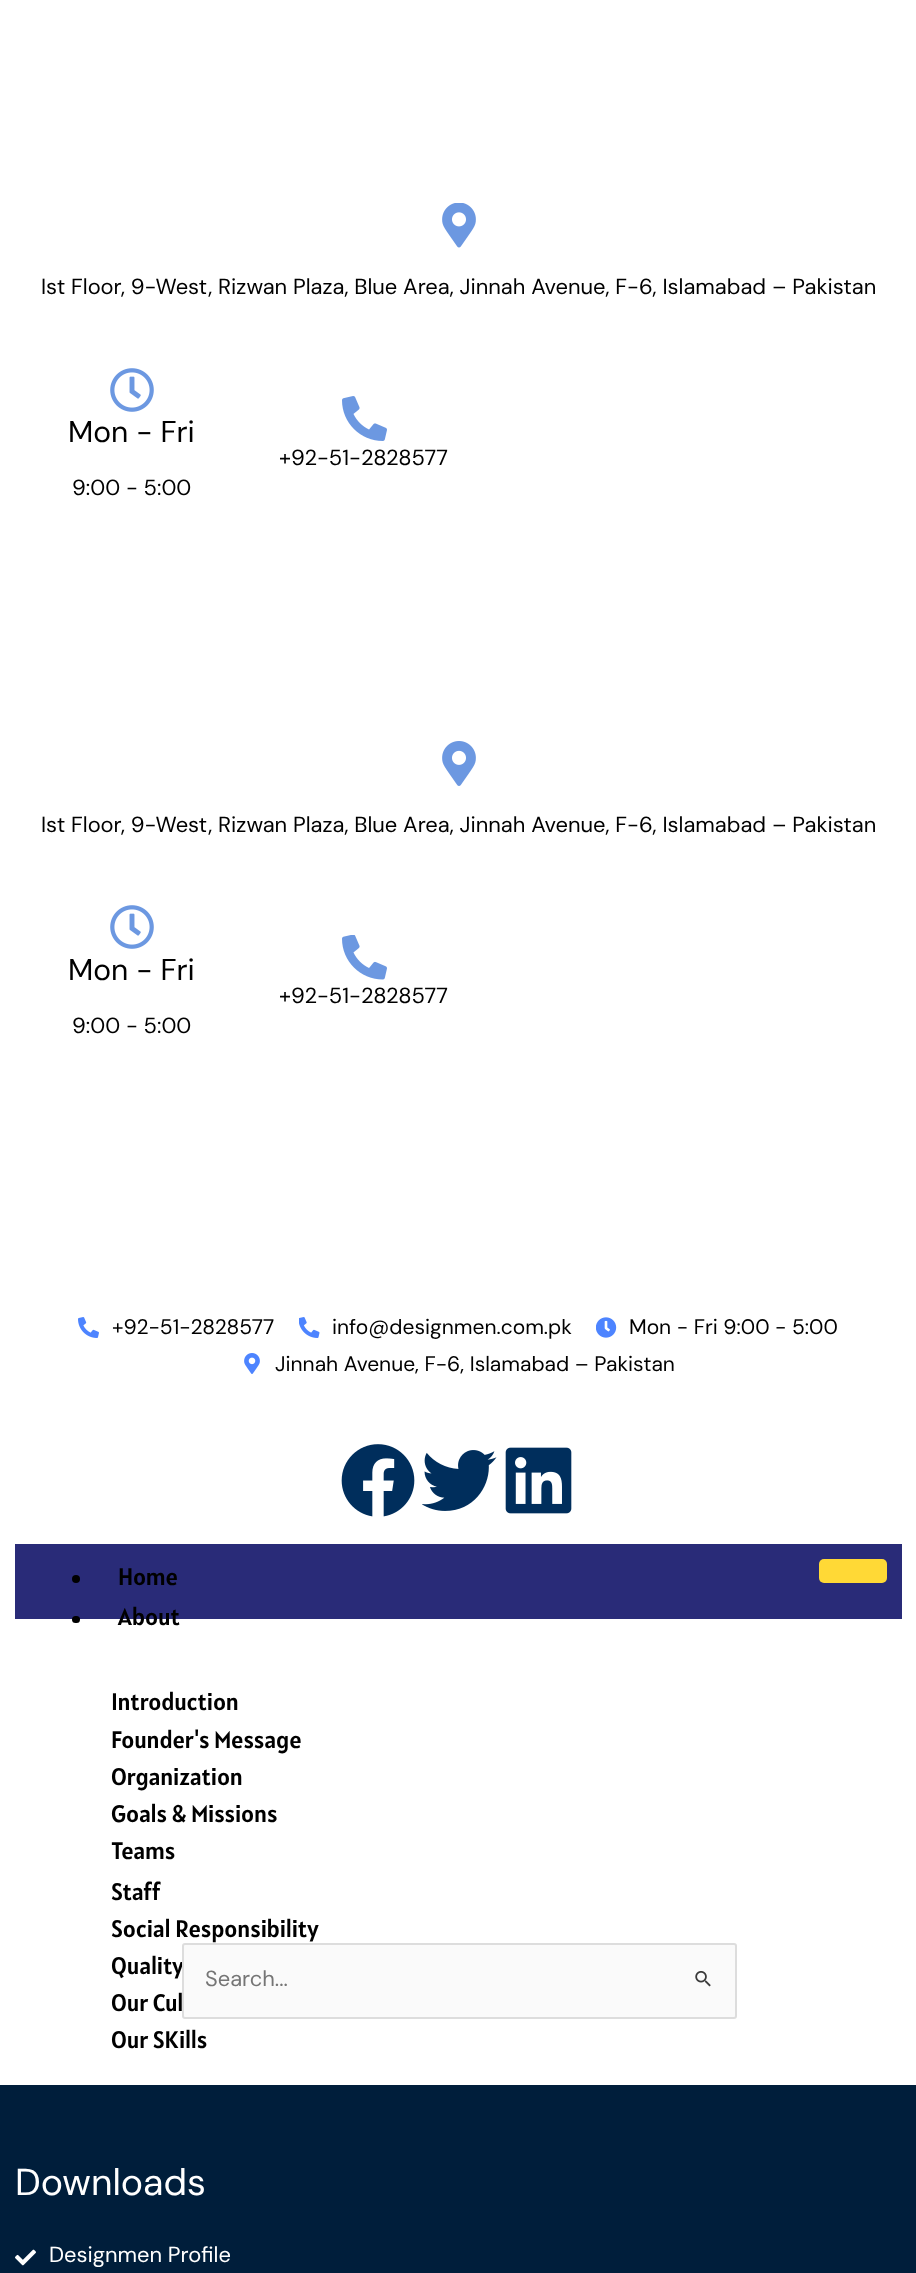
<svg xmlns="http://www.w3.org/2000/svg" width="916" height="2273">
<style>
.a{font:21.9px DM Sans;fill:#000}
.b{font:30px DM Sans;fill:#000}
.c{font:21px DM Sans;fill:#000}
.d{font:24px Alatsi;fill:#000}
.e{font:21.9px DM Sans;fill:#757575}
.f{font:37.5px DM Sans;fill:#fff}
.g{font:21.9px DM Sans;fill:#fff}
</style>
<rect width="100%" height="100%" fill="#fff"/>
<image href="1.png" x="442" y="203" width="34" height="45"/>
<image href="2.png" x="110" y="368" width="44" height="44"/>
<image href="3.png" x="342" y="396" width="45" height="45"/>
<image href="4.png" x="442" y="741" width="34" height="45"/>
<image href="2.png" x="110" y="905" width="44" height="44"/>
<image href="5.png" x="342" y="935" width="45" height="45"/>
<image href="6.png" x="78" y="1317" width="21" height="21"/>
<image href="7.png" x="299" y="1317" width="21" height="21"/>
<image href="8.png" x="596" y="1317" width="21" height="21"/>
<image href="9.png" x="244" y="1353" width="16" height="21"/>
<image href="10.png" x="341" y="1444" width="74" height="73"/>
<image href="11.png" x="422" y="1450" width="75" height="61"/>
<image href="12.png" x="505" y="1447" width="67" height="67"/>
<path fill="#292b78" d="M15 1544h887v75H15z"/>
<circle fill="#000" cx="76" cy="1579" r="4"/>
<rect fill="#000" x="72" y="1616" width="8" height="7" rx="3.5"/>
<rect fill="#ffd936" x="819" y="1559" width="68" height="24" rx="5"/>
<path fill="#001e3b" d="M0 2085h916v188H0z"/>
<image href="14.png" x="15" y="2249" width="21" height="17"/>
<text class="a" x="41" y="294">Ist Floor, 9-West, Rizwan Plaza, Blue Area, Jinnah Avenue, F-6, Islamabad – Pakistan</text>
<text class="b" x="68" y="442">Mon - Fri</text>
<text class="a" x="72" y="495">9:00 - 5:00</text>
<text class="a" x="279" y="465">+92-51-2828577</text>
<text class="a" x="41" y="832">Ist Floor, 9-West, Rizwan Plaza, Blue Area, Jinnah Avenue, F-6, Islamabad – Pakistan</text>
<text class="b" x="68" y="980">Mon - Fri</text>
<text class="a" x="72" y="1033">9:00 - 5:00</text>
<text class="a" x="279" y="1003">+92-51-2828577</text>
<text class="c" x="112" y="1334">+92-51-2828577</text>
<text class="c" x="332" y="1334">info@designmen.com.pk</text>
<text class="c" x="629" y="1334">Mon - Fri 9:00 - 5:00</text>
<text class="c" x="275" y="1371">Jinnah Avenue, F-6, Islamabad – Pakistan</text>
<text class="d" x="118" y="1585">Home</text>
<text class="d" x="118" y="1625">About</text>
<text class="d" x="111" y="1710">Introduction</text>
<text class="d" x="111" y="1748">Founder's Message</text>
<text class="d" x="111" y="1785">Organization</text>
<text class="d" x="111" y="1822">Goals &amp; Missions</text>
<text class="d" x="111" y="1859">Teams</text>
<text class="d" x="111" y="1900">Staff</text>
<text class="d" x="111" y="1937">Social Responsibility</text>
<text class="d" x="111" y="1974">Quality</text>
<text class="d" x="111" y="2011">Our Cul</text>
<text class="d" x="111" y="2048">Our SKills</text>
<rect fill="#fafafa" stroke="#ddd" stroke-width="2" x="183" y="1944" width="553" height="74" rx="2"/>
<text class="e" x="205" y="1986">Search...</text>
<image href="13.png" x="695" y="1971" width="16" height="16"/>
<text class="f" x="15" y="2195">Downloads</text>
<text class="g" x="49" y="2262">Designmen Profile</text>
</svg>
